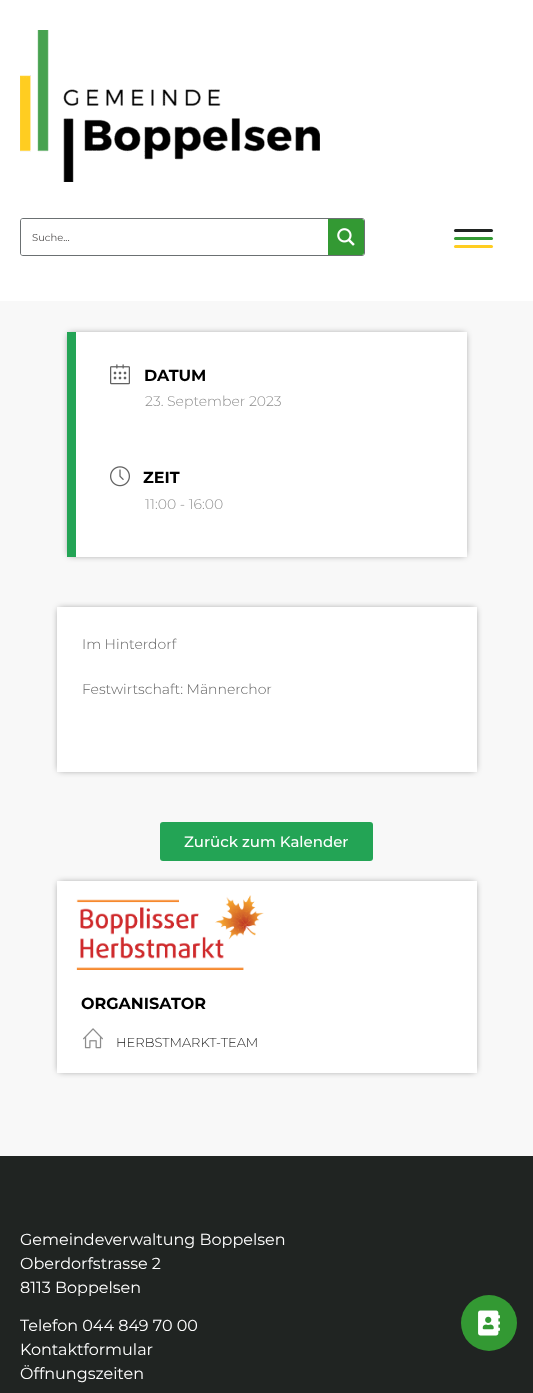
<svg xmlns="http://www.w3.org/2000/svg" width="533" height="1393">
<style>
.a{font:10px Montserrat;fill:#514f4f}
.b{font:bold 16px Montserrat;fill:#000}
.c{font:300 14px Montserrat;fill:#8d8d8d}
.d{font:300 14px Montserrat;fill:#616161}
.e{font:500 15px Montserrat;fill:#fff}
.f{font:300 13px Montserrat;fill:#222}
.g{font:16px Montserrat;fill:#fff}
</style>
<defs>
<clipPath id="clip1"><path d="M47 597h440v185h-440zm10 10h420v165h-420z" clip-rule="evenodd"/></clipPath>
</defs>
<rect width="100%" height="100%" fill="#f8f8f8"/>
<path fill="#fff" d="M0 0h533v301H0z"/>
<image href="1.png" x="20" y="30" width="300" height="152"/>
<rect fill="none" stroke="#6b7072" x="20.5" y="218.5" width="344" height="37" rx="2.5"/>
<rect fill="#fff" x="21" y="219" width="343" height="36" rx="2"/>
<path fill="#393" d="M328 219h34c1 0 2 1 2 2v32c0 1-1 2-2 2h-34z"/>
<image href="2.png" x="337" y="228" width="18" height="18"/>
<rect fill="#393" x="454" y="237" width="39" height="3" rx="1.5"/>
<rect fill="#202422" x="454" y="229" width="39" height="3" rx="1.5"/>
<rect fill="#ffcd21" x="454" y="245" width="39" height="3" rx="1.5"/>
<path fill="#00000080" filter="blur(3.5px)" d="M69 334h396v221H69z"/>
<path fill="#fff" d="M76 332h391v225H76z"/>
<path fill="#23a455" d="M67 332h9v225H67z"/>
<image href="3.png" x="110" y="364" width="20" height="21"/>
<image href="4.png" x="110" y="466" width="20" height="21"/>
<path fill="#fff" d="M57 607h420v165H57z"/>
<g clip-path="url(#clip1)">
<path fill="#00000080" filter="blur(3.5px)" d="M59 609h416v161H59z"/>
</g>
<rect fill="#23a455" x="160" y="822" width="213" height="39" rx="3"/>
<path fill="#00000080" filter="blur(3.5px)" d="M59 883h416v188H59z"/>
<path fill="#fff" d="M57 881h420v192H57z"/>
<image href="5.png" x="76" y="895" width="188" height="75"/>
<image href="6.png" x="83" y="1028" width="20" height="21"/>
<path fill="#202422" d="M0 1156h533v237H0z"/>
<circle fill="#393" cx="489" cy="1323" r="28"/>
<image href="7.png" x="478" y="1310" width="22" height="26"/>
<text class="a" x="32" y="241">Suche...</text>
<text class="b" x="144" y="381">DATUM</text>
<text class="c" x="145" y="406">23. September 2023</text>
<text class="b" x="143" y="483">ZEIT</text>
<text class="c" x="145" y="509">11:00 - 16:00</text>
<text class="d" x="82" y="649">Im Hinterdorf</text>
<text class="d" x="82" y="694">Festwirtschaft: Männerchor</text>
<text class="e" x="184" y="847">Zurück zum Kalender</text>
<text class="b" x="81" y="1009">ORGANISATOR</text>
<text class="f" x="116" y="1047">HERBSTMARKT-TEAM</text>
<text class="g" x="20" y="1245">Gemeindeverwaltung Boppelsen</text>
<text class="g" x="20" y="1269">Oberdorfstrasse 2</text>
<text class="g" x="20" y="1293">8113 Boppelsen</text>
<text class="g" x="20" y="1331">Telefon 044 849 70 00</text>
<text class="g" x="20" y="1355">Kontaktformular</text>
<text class="g" x="20" y="1379">Öffnungszeiten</text>
</svg>
